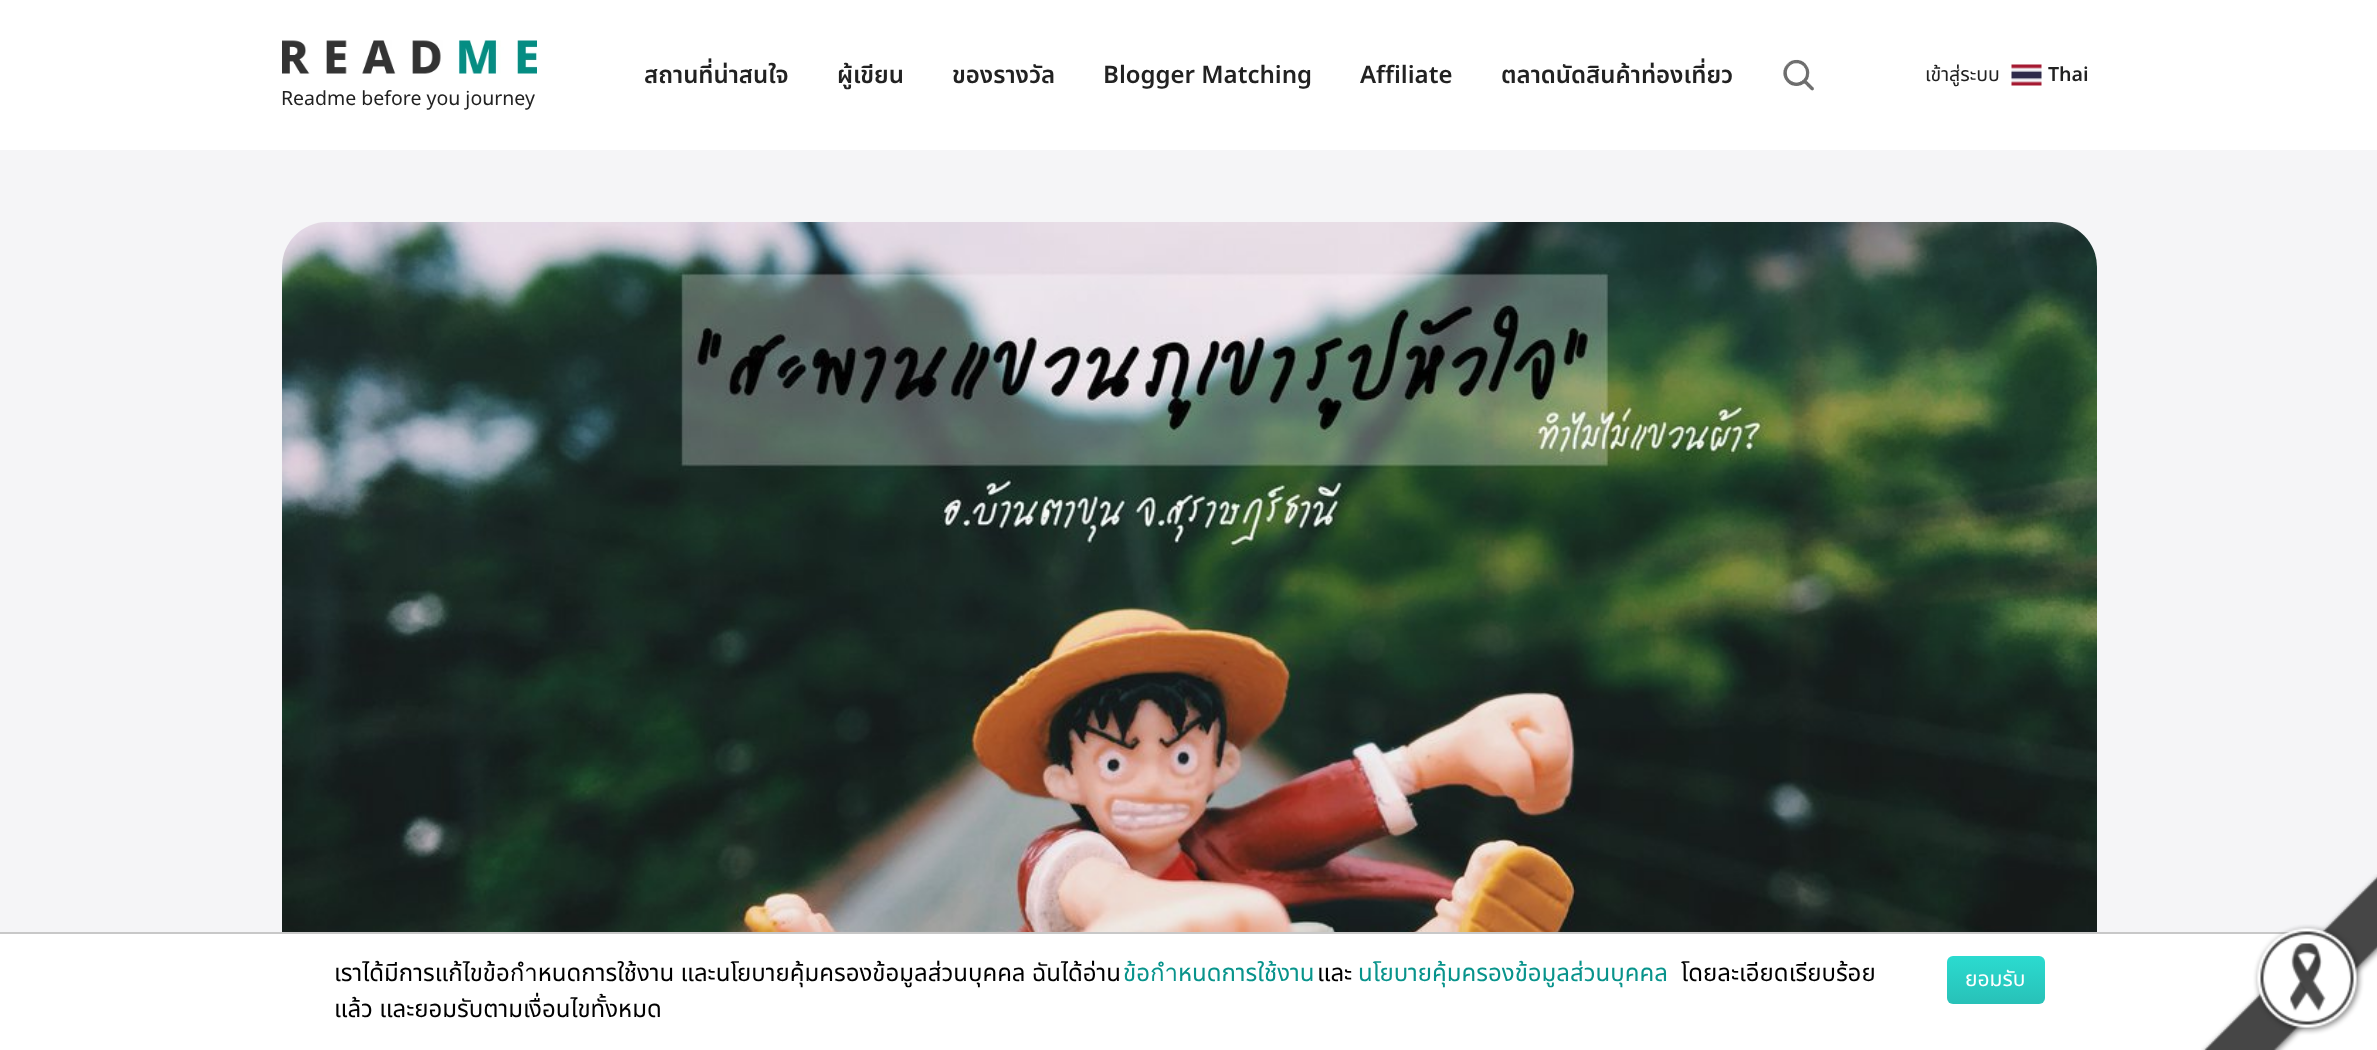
<svg xmlns="http://www.w3.org/2000/svg" width="2377" height="1050">
<style>
.a{font:600 24px Noto Sans Thai;fill:#222}
.b{font:600 24px Noto Sans;fill:#222}
.c{font:19.5px Noto Sans Thai;fill:#222}
.d{font:600 19.5px Noto Sans;fill:#222}
.e{font:19.5px Noto Sans;fill:#222}
.f{font:24px Noto Sans Thai;fill:#000}
.g{font:24px Noto Sans Thai;fill:#07938b}
.h{font:21px Noto Sans Thai;fill:#fff}
</style>
<defs>
<linearGradient id="g1" gradientUnits="userSpaceOnUse" x1="1996" y1="956" x2="1996" y2="1004"><stop offset="0" stop-color="#2bdbd0"/><stop offset="1" stop-color="#28c1b8"/></linearGradient>
</defs>
<rect width="100%" height="100%" fill="#fff"/>
<image href="1.png" x="1783" y="59" width="31" height="32"/>
<image href="2.png" x="2011" y="64" width="31" height="22"/>
<image href="3.png" x="282" y="40" width="255" height="34"/>
<path fill="#f5f5f7" d="M0 150h2377v782H0z"/>
<image href="4.png" x="282" y="222" width="1815" height="710"/>
<path fill="#c8c8c8" d="M0 932h2291v2H0z"/>
<rect fill="url(#g1)" x="1947" y="956" width="98" height="48" rx="6"/>
<image href="5.png" x="2201" y="874" width="176" height="176"/>
<text class="a" x="644" y="83">สถานที่น่าสนใจ</text>
<text class="a" x="837" y="83">ผู้เขียน</text>
<text class="a" x="952" y="83">ของรางวัล</text>
<text class="b" x="1103" y="83">Blogger Matching</text>
<text class="b" x="1360" y="83">Affiliate</text>
<text class="a" x="1501" y="83">ตลาดนัดสินค้าท่องเที่ยว</text>
<text class="c" x="1925" y="81">เข้าสู่ระบบ</text>
<text class="d" x="2048" y="81">Thai</text>
<text class="e" x="281" y="105">Readme before you journey</text>
<text class="f" x="334" y="981">เราได้มีการแก้ไขข้อกำหนดการใช้งาน และนโยบายคุ้มครองข้อมูลส่วนบุคคล ฉันได้อ่าน</text>
<text class="g" x="1123" y="981">ข้อกำหนดการใช้งาน</text>
<text class="f" x="1317" y="981">และ</text>
<text class="g" x="1358" y="981">นโยบายคุ้มครองข้อมูลส่วนบุคคล</text>
<text class="f" x="1681" y="981">โดยละเอียดเรียบร้อย</text>
<text class="f" x="334" y="1017">แล้ว และยอมรับตามเงื่อนไขทั้งหมด</text>
<text class="h" x="1965" y="986">ยอมรับ</text>
</svg>
